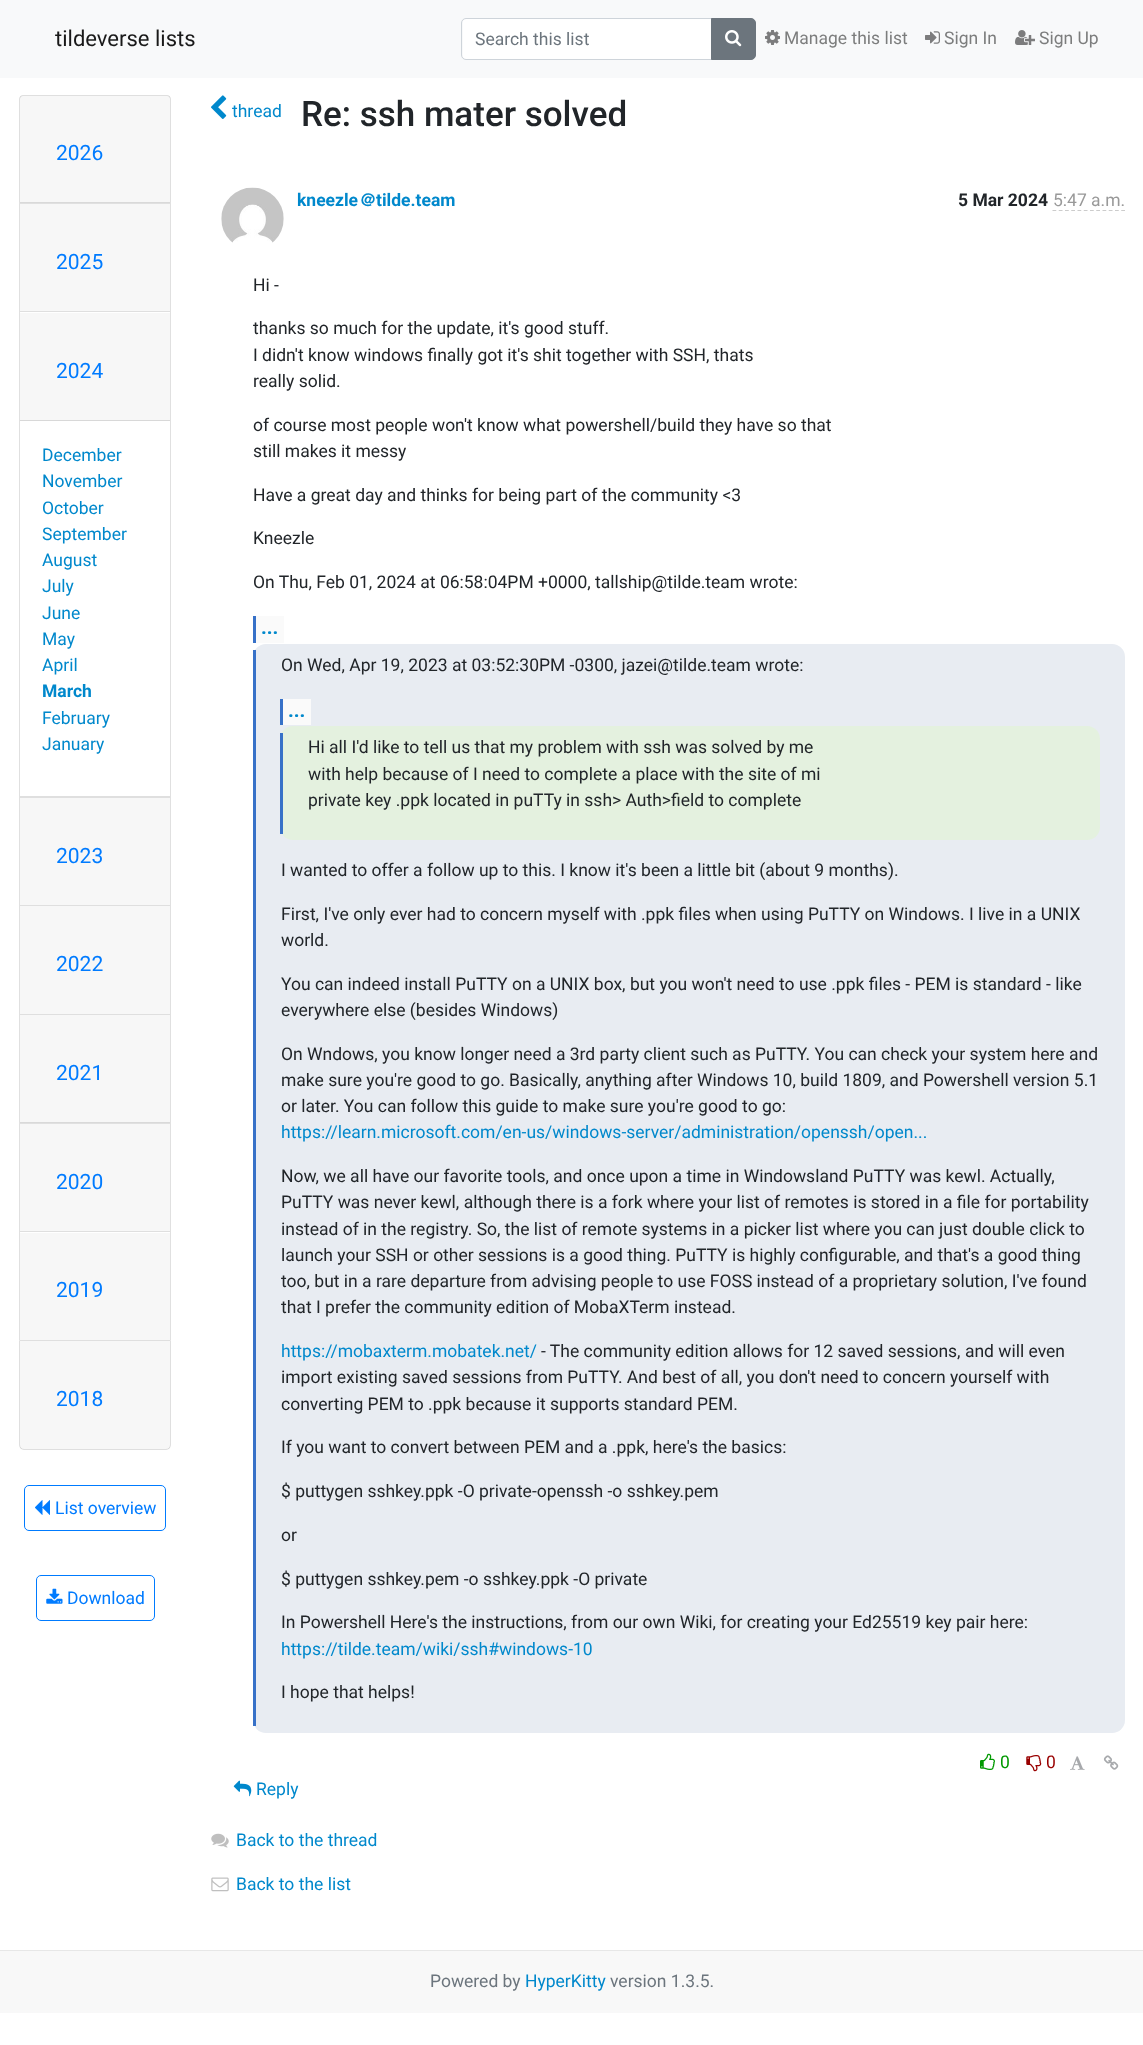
<svg xmlns="http://www.w3.org/2000/svg" width="1143" height="2045">
<style>
.a{font:22px Roboto;fill:#191919}
.b{font:17.5px Roboto;fill:#6c757d}
.c{font:17.5px Roboto;fill:#7c7d7d}
.d{font:21px Roboto;fill:#007bff}
.e{font:17.5px Roboto;fill:#08c}
.f{font:bold 17.5px Roboto;fill:#08c}
.g{font:17.5px Roboto;fill:#007bff}
.h{font:500 35px Roboto;fill:#212529}
.i{font:bold 17.5px WenQuanYi Zen Hei;fill:#08c}
.j{font:bold 17.5px Roboto;fill:#212529}
.k{font:17.5px Roboto;fill:#999}
.l{font:17.5px Roboto;fill:#212529}
.m{font:bold 20px Roboto;fill:#08c}
.n{font:17.5px Roboto;fill:#090}
.o{font:17.5px Roboto;fill:#900}
</style>
<rect width="100%" height="100%" fill="#fff"/>
<path fill="#f8f9fa" d="M0 0h1143v78H0z"/>
<path fill="#fff" d="M466 19h245v40h-245c-1.5 0-3-1.5-3-3v-34c0-1.5 1.5-3 3-3z"/>
<path fill="none" stroke="#ced4da" d="M466 18.5h246.5v41h-246.5c-2.5 0-4.5-2-4.5-4.5v-32c0-2.5 2-4.5 4.5-4.5z"/>
<path fill="#6c757d" stroke="#6c757d" d="M711.5 18.5h39.5c2.5 0 4.5 2 4.5 4.5v32c0 2.5-2 4.5-4.5 4.5h-39.5z"/>
<image href="1.png" x="725" y="30" width="17" height="17"/>
<image href="2.png" x="765" y="30" width="15" height="15"/>
<image href="3.png" x="925" y="31" width="15" height="13"/>
<image href="4.png" x="1015" y="30" width="20" height="15"/>
<path fill="#dfdfdf" fill-rule="evenodd" d="M23 95h144c2 0 4 2 4 4v103h-152v-103c0-2 2-4 4-4zm0 1h144c2 0 3 2 3 3v103h-150v-103c0-1 1-3 3-3z"/>
<path fill="#00000008" d="M20 96h150v107H20z"/>
<path fill="#0000001f" d="M19 202h152l-1 2h-150z"/>
<path fill="#0000001f" d="M171 202v109h-1v-107z"/>
<path fill="#0000001f" d="M19 311v-109l1 2v107z"/>
<path fill="#f7f7f7" d="M20 204h150v107H20z"/>
<path fill="#dfdfdf" d="M19 311h152l-1 1h-150z"/>
<path fill="#0000001f" d="M171 311v485h-1v-484z"/>
<path fill="#0000001f" d="M19 796v-485l1 1v484z"/>
<path fill="#f7f7f7" d="M20 313h150v107H20z"/>
<path fill="#d8d8d8" d="M20 420h150v1H20z"/>
<path fill="#dfdfdf" d="M19 796h152l-1 2h-150z"/>
<path fill="#0000001f" d="M171 796v109h-1v-107z"/>
<path fill="#0000001f" d="M19 905v-109l1 2v107z"/>
<path fill="#f7f7f7" d="M20 798h150v107H20z"/>
<path fill="#dfdfdf" d="M19 905h152l-1 1h-150z"/>
<path fill="#0000001f" d="M171 905v109h-1v-108z"/>
<path fill="#0000001f" d="M19 1014v-109l1 1v108z"/>
<path fill="#f7f7f7" d="M20 906h150v108H20z"/>
<path fill="#dfdfdf" d="M19 1014h152l-1 1h-150z"/>
<path fill="#0000001f" d="M171 1014v108h-1v-107z"/>
<path fill="#0000001f" d="M19 1122v-108l1 1v107z"/>
<path fill="#f7f7f7" d="M20 1015h150v108H20z"/>
<path fill="#0000001f" d="M19 1122h152l-1 2h-150z"/>
<path fill="#0000001f" d="M171 1122v109h-1v-107z"/>
<path fill="#0000001f" d="M19 1231v-109l1 2v107z"/>
<path fill="#f7f7f7" d="M20 1124h150v107H20z"/>
<path fill="#dfdfdf" d="M19 1231h152l-1 1h-150z"/>
<path fill="#0000001f" d="M171 1231v109h-1v-108z"/>
<path fill="#0000001f" d="M19 1340v-109l1 1v108z"/>
<path fill="#f7f7f7" d="M20 1233h150v107H20z"/>
<path fill="none" stroke="#dfdfdf" d="M19.5 1340.5h151v104.5c0 2.5-2 4.5-4.5 4.5h-142c-2.5 0-4.5-2-4.5-4.5z"/>
<path fill="#00000008" d="M20 1341h150v108H20z"/>
<rect fill="none" stroke="#007bff" x="24.5" y="1485.5" width="141" height="45" rx="4.5"/>
<image href="5.png" x="35" y="1500" width="15" height="15"/>
<rect fill="none" stroke="#007bff" x="36.5" y="1575.5" width="118" height="45" rx="4.5"/>
<image href="6.png" x="46" y="1588" width="17" height="16"/>
<image href="7.png" x="211" y="95" width="16" height="24"/>
<image href="8.png" x="221" y="187" width="63" height="56"/>
<path fill="none" stroke="#ccc" stroke-width="1.2" stroke-dasharray="3.75 2.5" d="M1052.5 210.5h72.5"/>
<path fill="#fafafa" d="M256 616h28v27H256z"/>
<path fill="#3771c8" d="M253 616h3v27H253z"/>
<rect fill="#e8ecf2" x="253" y="644" width="872" height="1089" rx="13"/>
<path fill="#3771c8" d="M253 650h3v1076H253z"/>
<path fill="#fafafa" d="M283 699h28v26H283z"/>
<path fill="#3771c8" d="M280 699h3v26H280z"/>
<rect fill="#e4f1df" x="280" y="726" width="820" height="114" rx="13"/>
<path fill="#3771c8" d="M280 733h3v101H280z"/>
<image href="9.png" x="980" y="1753" width="15" height="17"/>
<image href="10.png" x="1026" y="1755" width="16" height="17"/>
<image href="11.png" x="1070" y="1756" width="15" height="14"/>
<image href="12.png" x="1103" y="1755" width="16" height="15"/>
<image href="13.png" x="233" y="1780" width="19" height="17"/>
<image href="14.png" x="211" y="1833" width="18" height="15"/>
<image href="15.png" x="211" y="1877" width="18" height="15"/>
<path fill="#f8f8f8" d="M0 1951h1143v62H0z"/>
<path fill="#e7e7e7" d="M0 1950h1143v1H0z"/>
<text class="a" x="55" y="46">tildeverse lists</text>
<text class="b" x="475" y="45">Search this list</text>
<text class="c" x="784" y="44">Manage this list</text>
<text class="c" x="944" y="44">Sign In</text>
<text class="c" x="1039" y="44">Sign Up</text>
<text class="d" x="56" y="160">2026</text>
<text class="d" x="56" y="269">2025</text>
<text class="d" x="56" y="378">2024</text>
<text class="e" x="42" y="461">December</text>
<text class="e" x="42" y="487">November</text>
<text class="e" x="42" y="514">October</text>
<text class="e" x="42" y="540">September</text>
<text class="e" x="42" y="566">August</text>
<text class="e" x="42" y="592">July</text>
<text class="e" x="42" y="619">June</text>
<text class="e" x="42" y="645">May</text>
<text class="e" x="42" y="671">April</text>
<text class="f" x="42" y="697">March</text>
<text class="e" x="42" y="724">February</text>
<text class="e" x="42" y="750">January</text>
<text class="d" x="56" y="863">2023</text>
<text class="d" x="56" y="971">2022</text>
<text class="d" x="56" y="1080">2021</text>
<text class="d" x="56" y="1189">2020</text>
<text class="d" x="56" y="1297">2019</text>
<text class="d" x="56" y="1406">2018</text>
<text class="g" x="55" y="1514">List overview</text>
<text class="g" x="67" y="1604">Download</text>
<text class="e" x="232" y="117">thread</text>
<text class="h" x="301" y="126">Re: ssh mater solved</text>
<text class="f" x="297" y="206">kneezle</text>
<text class="i" x="359" y="206">＠</text>
<text class="f" x="376" y="206">tilde.team</text>
<text class="j" x="958" y="206">5 Mar 2024</text>
<text class="k" x="1053" y="206">5:47 a.m.</text>
<text class="l" x="253" y="291">Hi -</text>
<text class="l" x="253" y="334">thanks so much for the update, it's good stuff.</text>
<text class="l" x="253" y="361">I didn't know windows finally got it's shit together with SSH, thats</text>
<text class="l" x="253" y="387">really solid.</text>
<text class="l" x="253" y="431">of course most people won't know what powershell/build they have so that</text>
<text class="l" x="253" y="457">still makes it messy</text>
<text class="l" x="253" y="501">Have a great day and thinks for being part of the community &lt;3</text>
<text class="l" x="253" y="544">Kneezle</text>
<text class="l" x="253" y="588">On Thu, Feb 01, 2024 at 06:58:04PM +0000, tallship@tilde.team wrote:</text>
<text class="m" x="261" y="634">...</text>
<text class="l" x="281" y="671">On Wed, Apr 19, 2023 at 03:52:30PM -0300, jazei@tilde.team wrote:</text>
<text class="m" x="288" y="717">...</text>
<text class="l" x="308" y="753">Hi all I'd like to tell us that my problem with ssh was solved by me</text>
<text class="l" x="308" y="780">with help because of I need to complete a place with the site of mi</text>
<text class="l" x="308" y="806">private key .ppk located in puTTy in ssh&gt; Auth&gt;field to complete</text>
<text class="l" x="281" y="876">I wanted to offer a follow up to this. I know it's been a little bit (about 9 months).</text>
<text class="l" x="281" y="920">First, I've only ever had to concern myself with .ppk files when using PuTTY on Windows. I live in a UNIX</text>
<text class="l" x="281" y="946">world.</text>
<text class="l" x="281" y="990">You can indeed install PuTTY on a UNIX box, but you won't need to use .ppk files - PEM is standard - like</text>
<text class="l" x="281" y="1016">everywhere else (besides Windows)</text>
<text class="l" x="281" y="1060">On Wndows, you know longer need a 3rd party client such as PuTTY. You can check your system here and</text>
<text class="l" x="281" y="1086">make sure you're good to go. Basically, anything after Windows 10, build 1809, and Powershell version 5.1</text>
<text class="l" x="281" y="1112">or later. You can follow this guide to make sure you're good to go:</text>
<text class="e" x="281" y="1138">https://learn.microsoft.com/en-us/windows-server/administration/openssh/open...</text>
<text class="l" x="281" y="1182">Now, we all have our favorite tools, and once upon a time in Windowsland PuTTY was kewl. Actually,</text>
<text class="l" x="281" y="1208">PuTTY was never kewl, although there is a fork where your list of remotes is stored in a file for portability</text>
<text class="l" x="281" y="1235">instead of in the registry. So, the list of remote systems in a picker list where you can just double click to</text>
<text class="l" x="281" y="1261">launch your SSH or other sessions is a good thing. PuTTY is highly configurable, and that's a good thing</text>
<text class="l" x="281" y="1287">too, but in a rare departure from advising people to use FOSS instead of a proprietary solution, I've found</text>
<text class="l" x="281" y="1313">that I prefer the community edition of MobaXTerm instead.</text>
<text class="e" x="281" y="1357">https://mobaxterm.mobatek.net/</text>
<text class="l" x="541" y="1357">- The community edition allows for 12 saved sessions, and will even</text>
<text class="l" x="281" y="1383">import existing saved sessions from PuTTY. And best of all, you don't need to concern yourself with</text>
<text class="l" x="281" y="1410">converting PEM to .ppk because it supports standard PEM.</text>
<text class="l" x="281" y="1453">If you want to convert between PEM and a .ppk, here's the basics:</text>
<text class="l" x="281" y="1497">$ puttygen sshkey.ppk -O private-openssh -o sshkey.pem</text>
<text class="l" x="281" y="1541">or</text>
<text class="l" x="281" y="1585">$ puttygen sshkey.pem -o sshkey.ppk -O private</text>
<text class="l" x="281" y="1628">In Powershell Here's the instructions, from our own Wiki, for creating your Ed25519 key pair here:</text>
<text class="e" x="281" y="1655">https://tilde.team/wiki/ssh#windows-10</text>
<text class="l" x="281" y="1698">I hope that helps!</text>
<text class="n" x="1000" y="1768">0</text>
<text class="o" x="1046" y="1768">0</text>
<text class="e" x="256" y="1795">Reply</text>
<text class="e" x="236" y="1846">Back to the thread</text>
<text class="e" x="236" y="1890">Back to the list</text>
<text class="b" x="430" y="1987">Powered by</text>
<text class="e" x="525" y="1987">HyperKitty</text>
<text class="b" x="610" y="1987">version 1.3.5.</text>
</svg>
